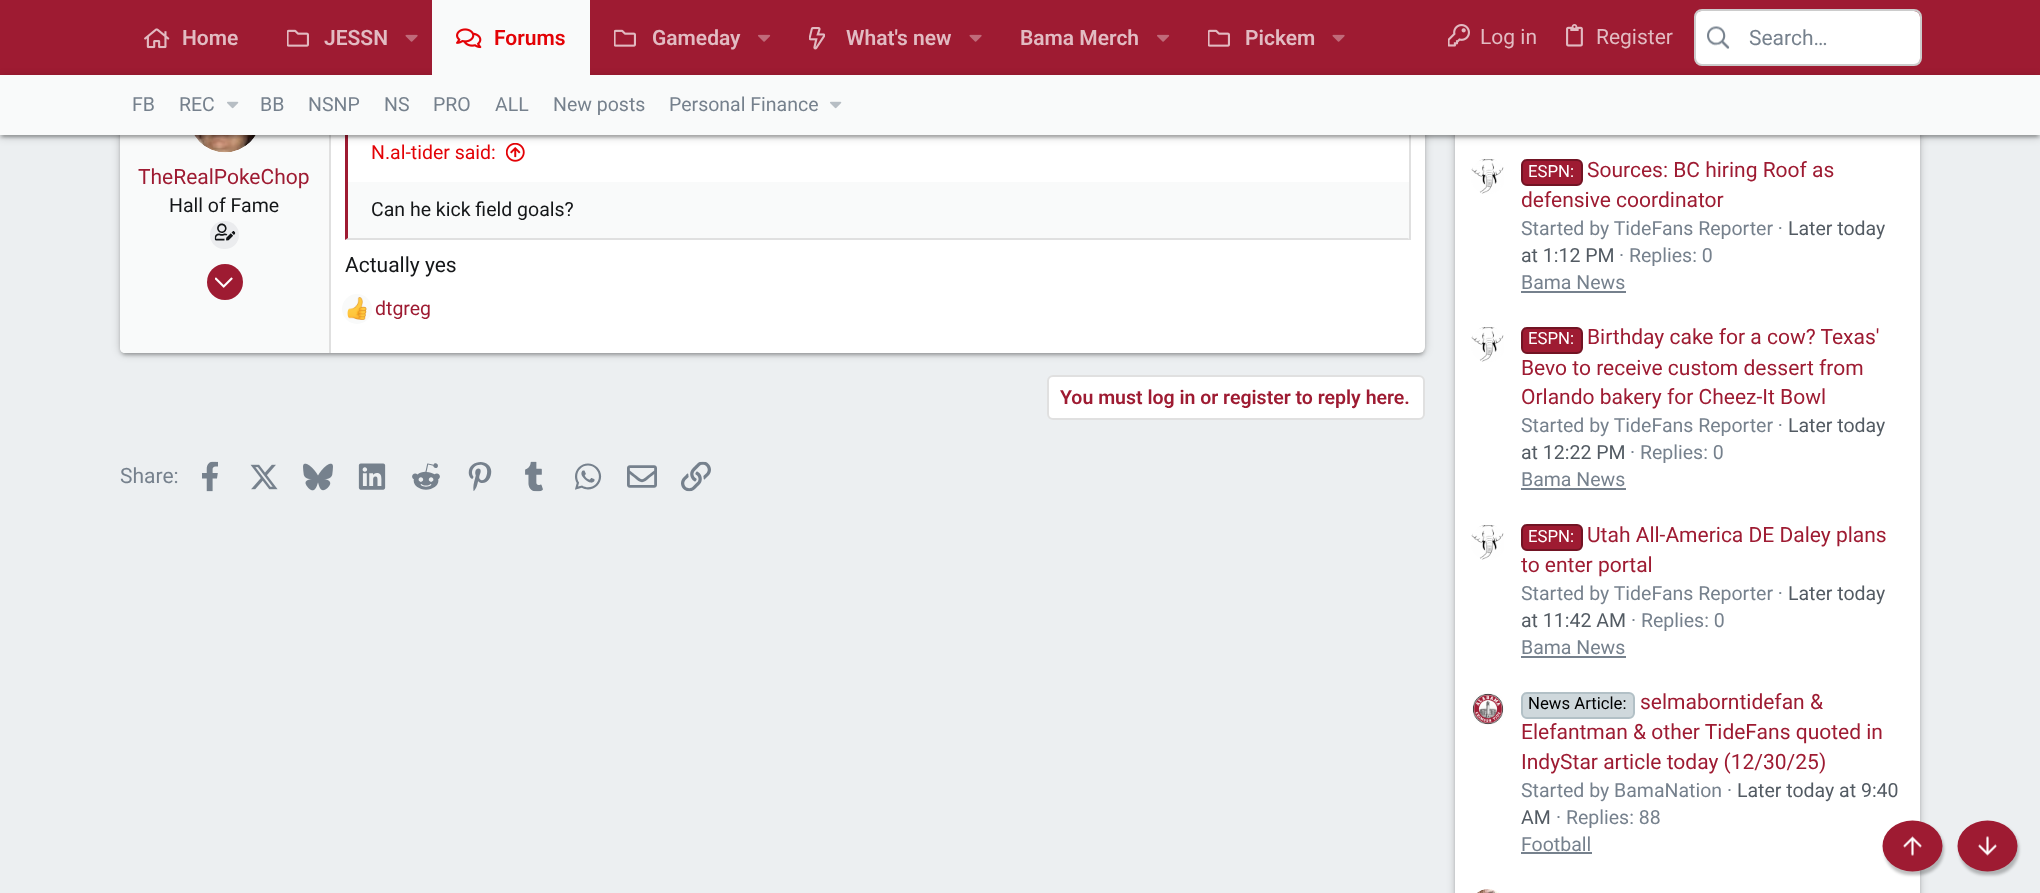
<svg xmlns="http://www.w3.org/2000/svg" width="2040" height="893">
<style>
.a{font:600 21px Roboto;fill:#e2bbc2}
.b{font:600 21px Roboto;fill:#e30206}
.c{font:21px Roboto;fill:#e2bbc2}
.d{font:21px Roboto;fill:#76818d}
.e{font:19.5px Roboto;fill:#76818d}
.f{font:21px Roboto;fill:#9e1b32}
.g{font:19.5px Roboto;fill:#141618}
.h{font:19.5px Roboto;fill:#e30206}
.i{font:21px Roboto;fill:#141618}
.j{font:19.5px Roboto;fill:#9e1b32}
.k{font:600 19.5px Roboto;fill:#9e1b32}
.l{font:16.75px Roboto;fill:#fff}
.m{font:19.5px Roboto;fill:#535b63}
.n{font:16.75px Roboto;fill:#000}
</style>
<rect width="100%" height="100%" fill="#eceff1"/>
<rect fill="#00000033" filter="blur(4px)" x="120" y="68" width="1305" height="286" rx="6"/>
<rect fill="#0000001f" filter="blur(1px)" x="123" y="74" width="1299" height="280" rx="3"/>
<rect fill="#00000024" filter="blur(1.5px)" x="120" y="69" width="1305" height="287" rx="6"/>
<rect fill="#fff" x="120" y="66" width="1305" height="287" rx="6"/>
<path fill="#f9fafa" d="M125 66h205v287h-205c-3 0-5-2-5-5v-277c0-3 2-5 5-5z"/>
<rect fill="#00000033" filter="blur(4px)" x="1455" y="-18" width="465" height="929" rx="6"/>
<rect fill="#00000024" filter="blur(1.5px)" x="1455" y="-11" width="465" height="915" rx="6"/>
<path fill="#9e1b32" d="M0 0h2040v75H0z"/>
<image href="1.png" x="144" y="28" width="26" height="21"/>
<image href="2.png" x="287" y="29" width="22" height="18"/>
<image href="3.png" x="405" y="34" width="13" height="8"/>
<path fill="#e0e0e0" d="M329 135h2v218H329z"/>
<circle fill="#fff" cx="225" cy="117" r="36"/>
<image href="11.png" x="194" y="135" width="62" height="18"/>
<path fill="#e0e0e0" d="M1409 135h2v105H1409z"/>
<path fill="#f9fafa" d="M348 182h1061v57H348z"/>
<path fill="#e0e0e0" d="M1410 240h-1065l3-2h1060z"/>
<path fill="#9e1b32" d="M345 240v-117l3 1v114z"/>
<image href="14.png" x="506" y="143" width="19" height="19"/>
<path fill="#fff" d="M1455 135h465v758H1455z"/>
<path fill="#00000033" filter="blur(4px)" d="M0 77h2040v60H0z"/>
<path fill="#00000024" filter="blur(1.5px)" d="M0 78h2040v60H0z"/>
<path fill="#f9fafa" d="M432 0h158v75H432z"/>
<image href="4.png" x="456" y="28" width="26" height="21"/>
<image href="2.png" x="614" y="29" width="22" height="18"/>
<image href="5.png" x="758" y="34" width="13" height="8"/>
<image href="6.png" x="809" y="27" width="16" height="23"/>
<image href="3.png" x="969" y="34" width="13" height="8"/>
<image href="5.png" x="1157" y="34" width="13" height="8"/>
<image href="2.png" x="1208" y="29" width="22" height="18"/>
<image href="3.png" x="1332" y="34" width="13" height="8"/>
<image href="7.png" x="1448" y="24" width="22" height="23"/>
<image href="8.png" x="1566" y="24" width="17" height="23"/>
<rect fill="#fff" x="1695" y="11" width="225" height="54" rx="6"/>
<rect fill="none" stroke="#ccc" stroke-width="2" x="1695" y="10" width="226" height="55" rx="7"/>
<image href="9.png" x="1707" y="26" width="23" height="23"/>
<path fill="#0000001f" filter="blur(1px)" d="M3 83h2034v54H3z"/>
<path fill="#f9fafa" d="M0 75h2040v60H0z"/>
<image href="10.png" x="227" y="101" width="12" height="8"/>
<image href="10.png" x="830" y="101" width="12" height="8"/>
<rect fill="#ebecee" x="210" y="221" width="29" height="28" rx="14"/>
<image href="12.png" x="214" y="223" width="22" height="18"/>
<circle fill="#9e1b32" cx="225" cy="282" r="18"/>
<image href="13.png" x="215" y="277" width="18" height="11"/>
<circle fill="#f9fafa" cx="357" cy="309" r="15"/>
<image href="15.png" x="347" y="297" width="20" height="23"/>
<rect fill="#fff" stroke="#e0e0e0" stroke-width="2" x="1048" y="376" width="376" height="43" rx="5"/>
<image href="16.png" x="202" y="461" width="16" height="31"/>
<image href="17.png" x="250" y="464" width="28" height="26"/>
<image href="18.png" x="303" y="463" width="30" height="28"/>
<image href="19.png" x="358" y="463" width="28" height="27"/>
<image href="20.png" x="412" y="463" width="28" height="27"/>
<image href="21.png" x="468" y="462" width="24" height="29"/>
<image href="22.png" x="525" y="461" width="18" height="31"/>
<image href="23.png" x="575" y="463" width="27" height="27"/>
<image href="24.png" x="627" y="465" width="30" height="23"/>
<image href="25.png" x="681" y="461" width="30" height="31"/>
<image href="26.png" x="1471" y="159" width="33" height="35"/>
<rect fill="#9e1b32" stroke="#721424" stroke-width="2" x="1522" y="160" width="60" height="25" rx="5"/>
<path fill="#76818d" d="M1521 291h105v2H1521z"/>
<image href="26.png" x="1471" y="327" width="33" height="35"/>
<rect fill="#9e1b32" stroke="#721424" stroke-width="2" x="1522" y="328" width="60" height="25" rx="5"/>
<path fill="#76818d" d="M1521 488h105v2H1521z"/>
<image href="26.png" x="1471" y="525" width="33" height="35"/>
<rect fill="#9e1b32" stroke="#721424" stroke-width="2" x="1522" y="525" width="60" height="25" rx="5"/>
<path fill="#76818d" d="M1521 656h105v2H1521z"/>
<image href="27.png" x="1472" y="693" width="32" height="32"/>
<rect fill="#cfd8dc" stroke="#b2c0c6" stroke-width="2" x="1522" y="693" width="112" height="25" rx="5"/>
<path fill="#76818d" d="M1521 852h71v2H1521z"/>
<image href="28.png" x="1477" y="889" width="22" height="4"/>
<rect fill="#00000040" filter="blur(1.5px)" x="1884" y="824" width="60" height="51" rx="25.5"/>
<ellipse fill="#9e1b32" cx="1912.5" cy="846" rx="30" ry="25.5"/>
<image href="29.png" x="1903" y="836" width="19" height="20"/>
<rect fill="#00000040" filter="blur(1.5px)" x="1959" y="824" width="60" height="51" rx="25.5"/>
<ellipse fill="#9e1b32" cx="1987.5" cy="846" rx="30" ry="25.5"/>
<image href="30.png" x="1978" y="836" width="19" height="20"/>
<text class="a" x="182" y="45">Home</text>
<text class="a" x="324" y="45">JESSN</text>
<text class="b" x="494" y="45">Forums</text>
<text class="a" x="652" y="45">Gameday</text>
<text class="a" x="846" y="45">What's new</text>
<text class="a" x="1020" y="45">Bama Merch</text>
<text class="a" x="1245" y="45">Pickem</text>
<text class="c" x="1480" y="44">Log in</text>
<text class="c" x="1596" y="44">Register</text>
<text class="d" x="1749" y="45">Search…</text>
<text class="e" x="132" y="111">FB</text>
<text class="e" x="179" y="111">REC</text>
<text class="e" x="260" y="111">BB</text>
<text class="e" x="308" y="111">NSNP</text>
<text class="e" x="384" y="111">NS</text>
<text class="e" x="433" y="111">PRO</text>
<text class="e" x="495" y="111">ALL</text>
<text class="e" x="553" y="111">New posts</text>
<text class="e" x="669" y="111">Personal Finance</text>
<text class="f" x="138" y="184">TheRealPokeChop</text>
<text class="g" x="169" y="212">Hall of Fame</text>
<text class="h" x="371" y="159">N.al-tider said:</text>
<text class="g" x="371" y="216">Can he kick field goals?</text>
<text class="i" x="345" y="272">Actually yes</text>
<text class="j" x="375" y="315">dtgreg</text>
<text class="k" x="1060" y="404">You must log in or register to reply here.</text>
<text class="d" x="120" y="483">Share:</text>
<text class="l" x="1528" y="177">ESPN:</text>
<text class="f" x="1587" y="177">Sources: BC hiring Roof as</text>
<text class="f" x="1521" y="207">defensive coordinator</text>
<text class="e" x="1521" y="235">Started by TideFans Reporter ·</text>
<text class="m" x="1788" y="235">Later today</text>
<text class="m" x="1521" y="262">at 1:12 PM</text>
<text class="e" x="1619" y="262">· Replies: 0</text>
<text class="e" x="1521" y="289">Bama News</text>
<text class="l" x="1528" y="344">ESPN:</text>
<text class="f" x="1587" y="344">Birthday cake for a cow? Texas'</text>
<text class="f" x="1521" y="375">Bevo to receive custom dessert from</text>
<text class="f" x="1521" y="404">Orlando bakery for Cheez-It Bowl</text>
<text class="e" x="1521" y="432">Started by TideFans Reporter ·</text>
<text class="m" x="1788" y="432">Later today</text>
<text class="m" x="1521" y="459">at 12:22 PM</text>
<text class="e" x="1630" y="459">· Replies: 0</text>
<text class="e" x="1521" y="486">Bama News</text>
<text class="l" x="1528" y="542">ESPN:</text>
<text class="f" x="1587" y="542">Utah All-America DE Daley plans</text>
<text class="f" x="1521" y="572">to enter portal</text>
<text class="e" x="1521" y="600">Started by TideFans Reporter ·</text>
<text class="m" x="1788" y="600">Later today</text>
<text class="m" x="1521" y="627">at 11:42 AM</text>
<text class="e" x="1631" y="627">· Replies: 0</text>
<text class="e" x="1521" y="654">Bama News</text>
<text class="n" x="1528" y="709">News Article:</text>
<text class="f" x="1640" y="709">selmaborntidefan &amp;</text>
<text class="f" x="1521" y="739">Elefantman &amp; other TideFans quoted in</text>
<text class="f" x="1521" y="769">IndyStar article today (12/30/25)</text>
<text class="e" x="1521" y="797">Started by BamaNation ·</text>
<text class="m" x="1737" y="797">Later today at 9:40</text>
<text class="m" x="1521" y="824">AM</text>
<text class="e" x="1556" y="824">· Replies: 88</text>
<text class="e" x="1521" y="851">Football</text>
</svg>
